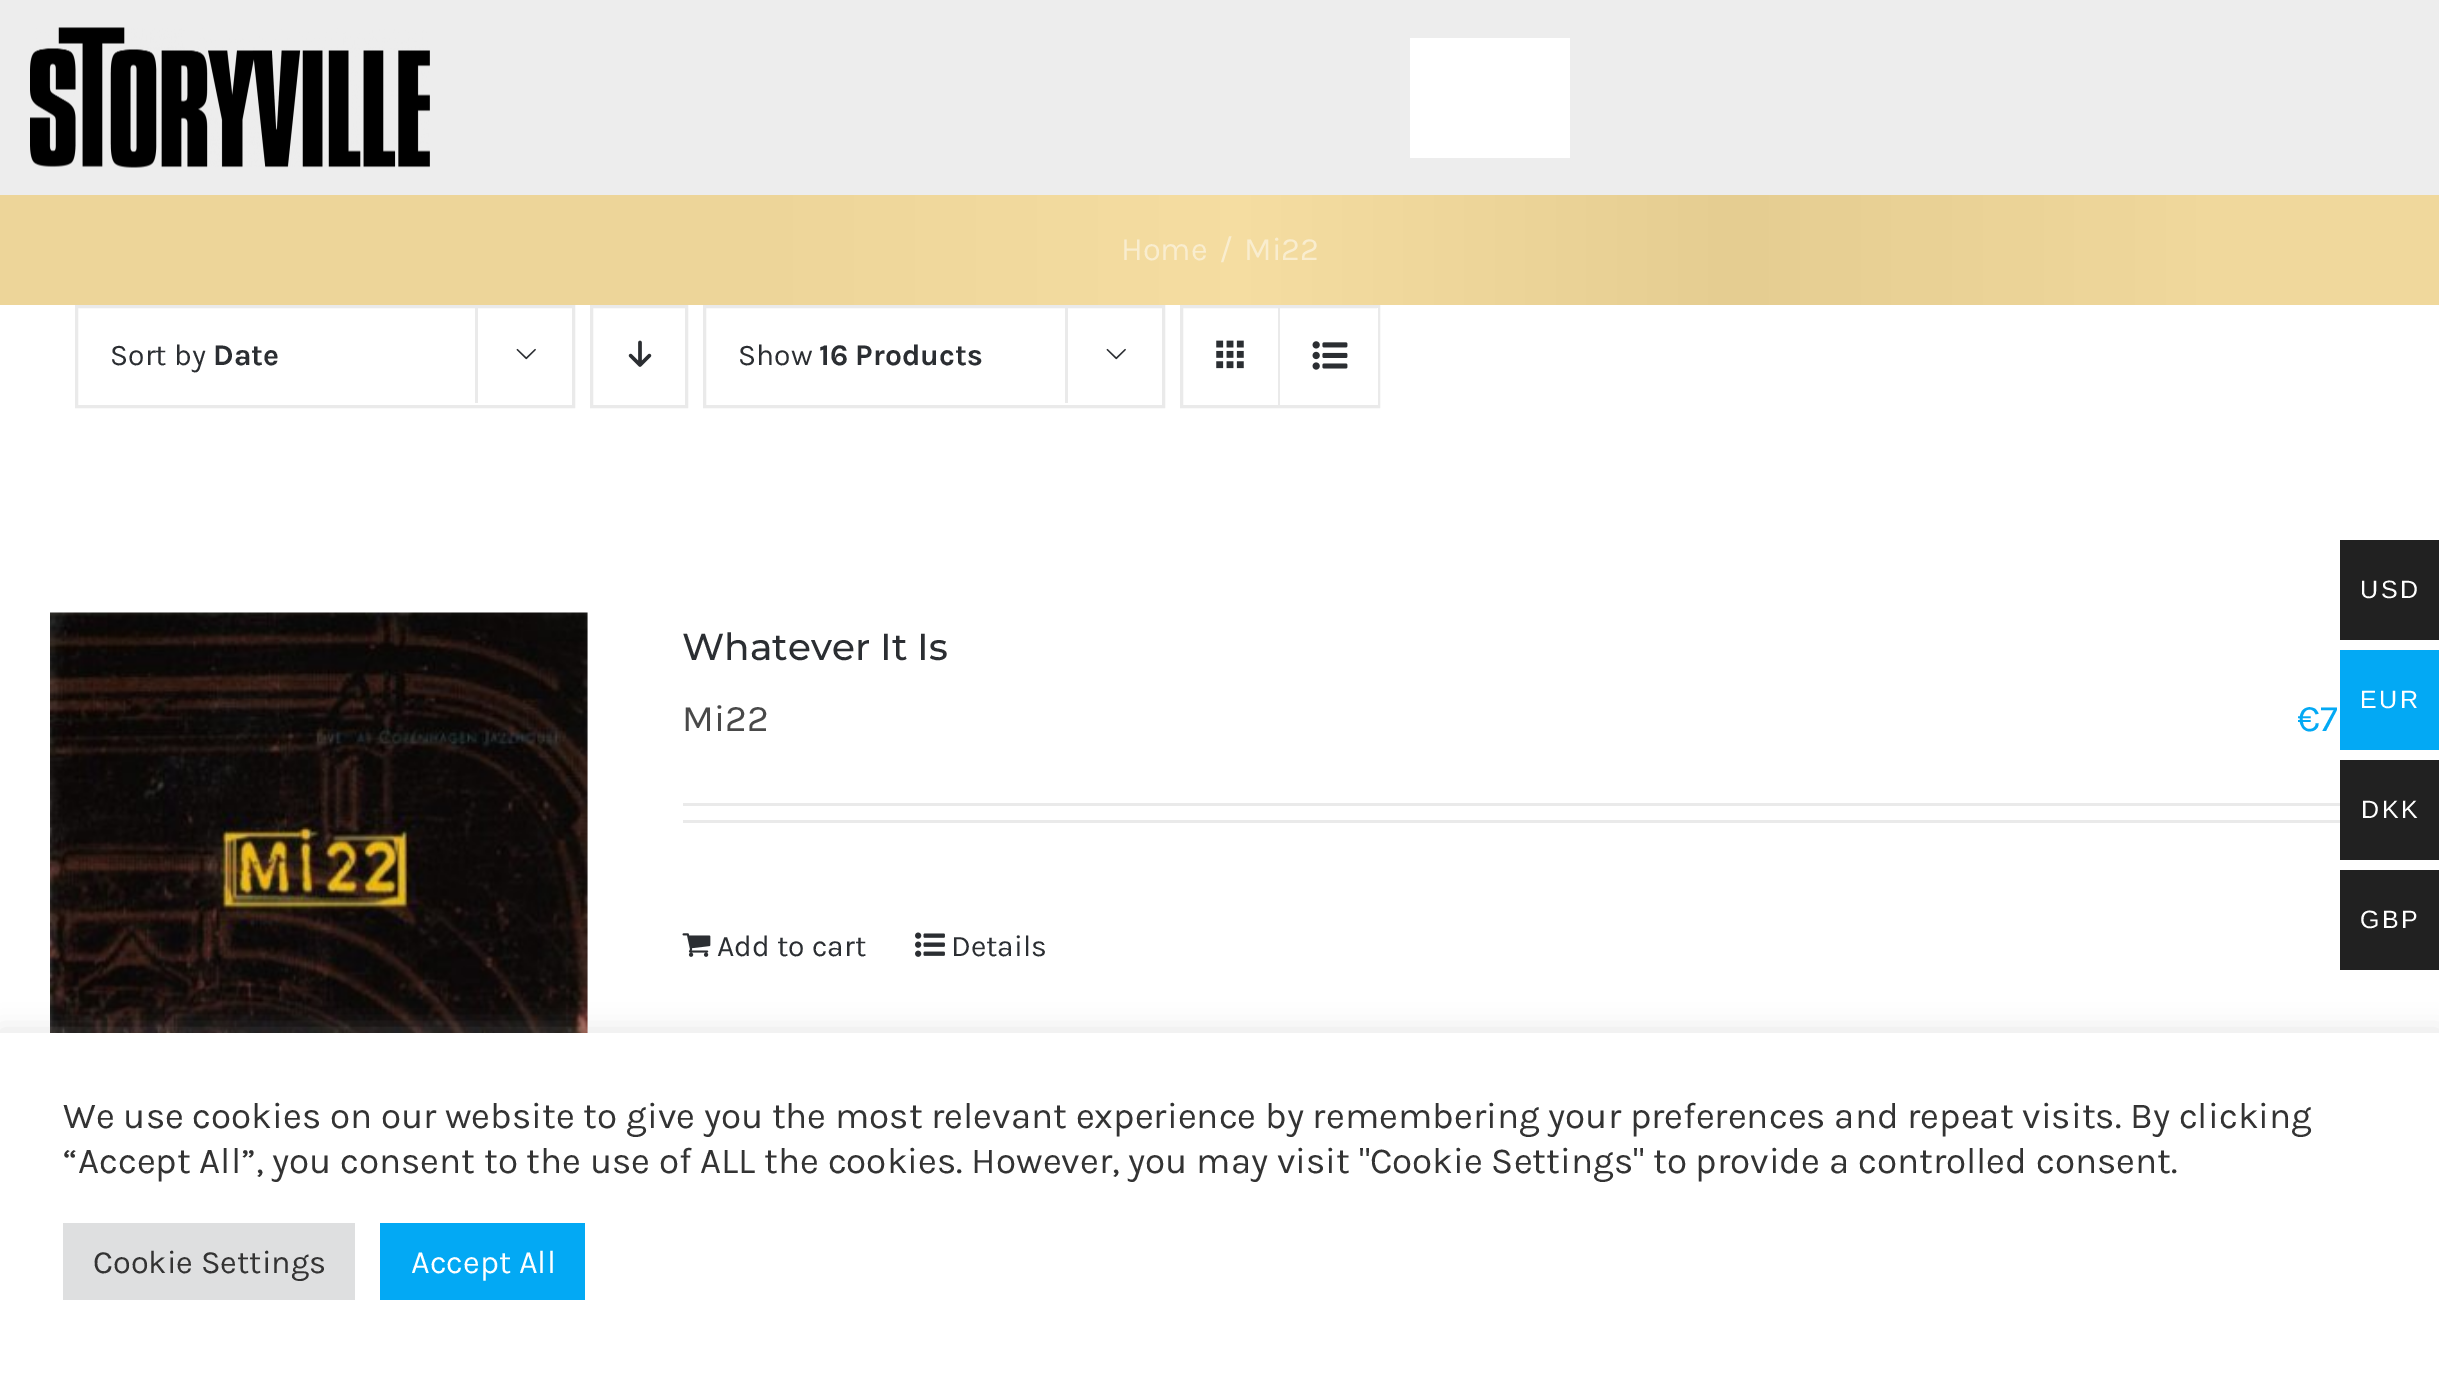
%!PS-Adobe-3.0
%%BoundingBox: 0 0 2439 1373
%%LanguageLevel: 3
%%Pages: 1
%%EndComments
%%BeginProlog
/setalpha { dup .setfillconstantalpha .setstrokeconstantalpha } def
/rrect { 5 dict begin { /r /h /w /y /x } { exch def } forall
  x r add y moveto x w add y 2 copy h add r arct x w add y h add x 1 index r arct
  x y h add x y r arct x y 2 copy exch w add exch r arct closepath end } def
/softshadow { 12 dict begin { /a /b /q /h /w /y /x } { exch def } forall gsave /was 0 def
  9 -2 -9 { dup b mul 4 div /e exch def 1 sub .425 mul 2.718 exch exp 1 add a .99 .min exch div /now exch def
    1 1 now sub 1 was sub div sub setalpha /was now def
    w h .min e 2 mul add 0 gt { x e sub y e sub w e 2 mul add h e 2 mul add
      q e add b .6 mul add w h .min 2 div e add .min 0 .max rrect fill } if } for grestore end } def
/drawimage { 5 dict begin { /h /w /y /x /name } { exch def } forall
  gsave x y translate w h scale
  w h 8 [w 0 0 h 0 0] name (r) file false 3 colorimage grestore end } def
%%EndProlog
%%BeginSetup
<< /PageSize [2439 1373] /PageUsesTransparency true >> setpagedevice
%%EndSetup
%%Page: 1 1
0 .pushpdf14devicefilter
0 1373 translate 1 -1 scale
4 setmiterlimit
1 setgray
0 0 2439 1373 rectfill
0.929 setgray
0 0 2439 195 rectfill
(images/1.raw) 30 27 400 141 drawimage
1 setgray
1410 38 160 120 rectfill
(images/2.raw) 0 195 2439 110 drawimage
0.918 setgray
3 setlinewidth
76.5 306.5 497 100 rectstroke
475 305 3 98 rectfill
(images/3.raw) 516 348 20 12 drawimage
591.5 306.5 95 100 rectstroke
(images/4.raw) 628 340 24 27 drawimage
704.5 306.5 459 100 rectstroke
1065 305 3 98 rectfill
(images/3.raw) 1106 348 20 12 drawimage
1181.5 306.5 197 100 rectstroke
1278 308 2 97 rectfill
(images/5.raw) 1216 340 28 29 drawimage
1 setgray
1377 308 1 97 rectfill
(images/6.raw) 1312 341 36 29 drawimage
(images/7.raw) 50 612 538 421 drawimage
0.918 setgray
683 803 1657 3 rectfill
683 820 1657 3 rectfill
(images/8.raw) 682 933 29 24 drawimage
(images/9.raw) 915 932 30 25 drawimage
0.129 setgray
2340 540 99 100 rectfill
0.012 0.663 0.957 setrgbcolor
2340 650 99 100 rectfill
0.129 setgray
2340 760 99 100 rectfill
2340 870 99 100 rectfill
0.675 0.671 0.671 setrgbcolor
0 1030 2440 343 0 12.5 0.3 softshadow
1 setgray
0 1033 2439 340 rectfill
0.871 0.875 0.878 setrgbcolor
63 1223 292 77 rectfill
0.012 0.663 0.957 setrgbcolor
380 1223 205 77 rectfill
/Karla-Regular [32.5 0 0 -32.5 0 0] selectfont
0.976 0.929 0.812 setrgbcolor
1121 260 moveto (Home) show
1219 260 moveto (/) show
1244 260 moveto (Mi22) show
/Karla-Regular [30 0 0 -30 0 0] selectfont
0.169 0.18 0.196 setrgbcolor
110 365 moveto (Sort by) show
/Karla-Bold [30 0 0 -30 0 0] selectfont
213 365 moveto (Date) show
/Karla-Regular [30 0 0 -30 0 0] selectfont
738 365 moveto (Show) show
/Karla-Bold [30 0 0 -30 0 0] selectfont
819 365 moveto (16 Products) show
/Montserrat-Medium [37.5 0 0 -37.5 0 0] selectfont
682 660 moveto (Whatever It Is) show
/Karla-Regular [37.5 0 0 -37.5 0 0] selectfont
0.286 setgray
682 731 moveto (Mi22) show
0.012 0.663 0.957 setrgbcolor
2297 731 moveto (€7) show
/Karla-Regular [30 0 0 -30 0 0] selectfont
0.169 0.18 0.196 setrgbcolor
717 956 moveto (Add to cart) show
951 956 moveto (Details) show
/LiberationSans-Regular [25 0 0 -25 0 0] selectfont
1 setgray
2360 598 moveto 2.5 0 (USD) ashow
2360 708 moveto 2.5 0 (EUR) ashow
2361 818 moveto 2.5 0 (DKK) ashow
2360 928 moveto 2.5 0 (GBP) ashow
/Karla-Regular [36.67 0 0 -36.67 0 0] selectfont
0.2 setgray
63 1128 moveto (We use cookies on our website to give you the most relevant experience by remembering your preferences and repeat visits. By clicking) show
63 1173 moveto (“Accept All”, you consent to the use of ALL the cookies. However, you may visit "Cookie Settings" to provide a controlled consent.) show
/Karla-Regular [32.5 0 0 -32.5 0 0] selectfont
93 1273 moveto (Cookie Settings) show
1 setgray
411 1273 moveto (Accept All) show
.poppdf14devicefilter showpage
%%EOF
